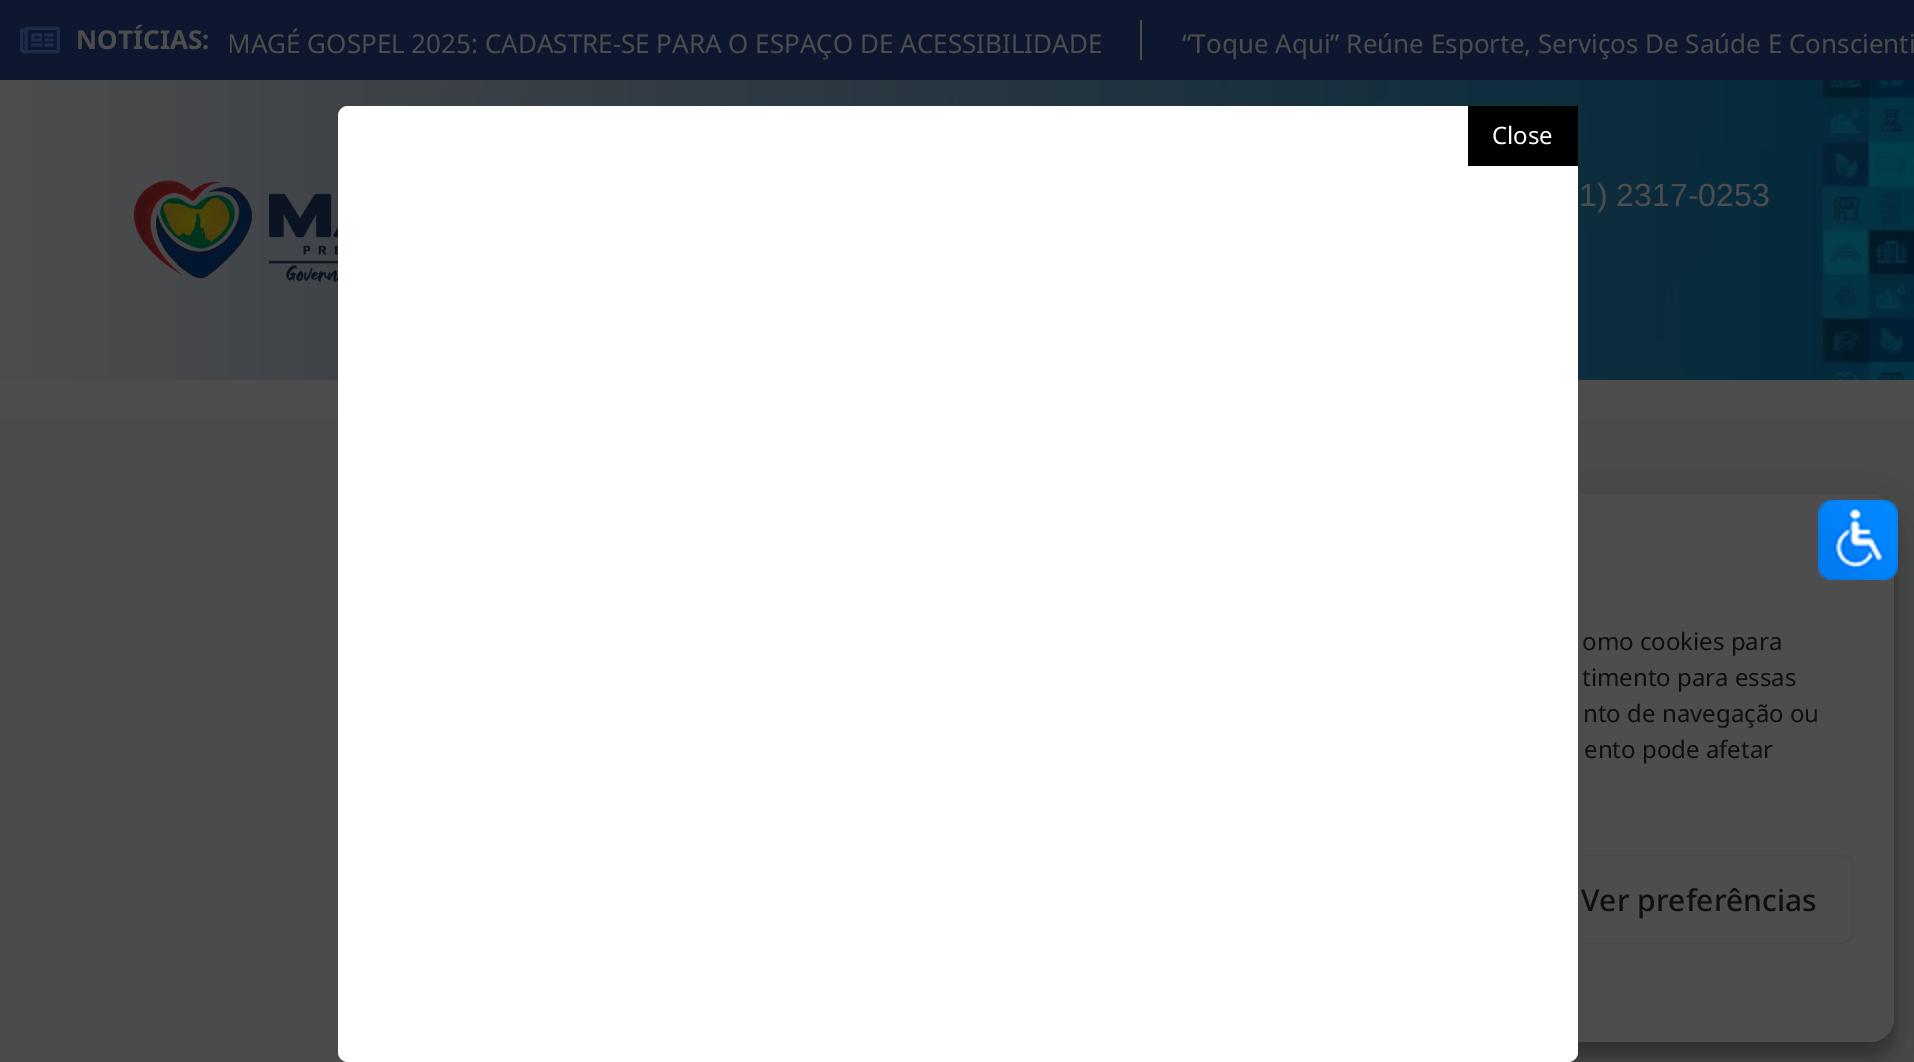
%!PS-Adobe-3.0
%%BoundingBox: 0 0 1914 1062
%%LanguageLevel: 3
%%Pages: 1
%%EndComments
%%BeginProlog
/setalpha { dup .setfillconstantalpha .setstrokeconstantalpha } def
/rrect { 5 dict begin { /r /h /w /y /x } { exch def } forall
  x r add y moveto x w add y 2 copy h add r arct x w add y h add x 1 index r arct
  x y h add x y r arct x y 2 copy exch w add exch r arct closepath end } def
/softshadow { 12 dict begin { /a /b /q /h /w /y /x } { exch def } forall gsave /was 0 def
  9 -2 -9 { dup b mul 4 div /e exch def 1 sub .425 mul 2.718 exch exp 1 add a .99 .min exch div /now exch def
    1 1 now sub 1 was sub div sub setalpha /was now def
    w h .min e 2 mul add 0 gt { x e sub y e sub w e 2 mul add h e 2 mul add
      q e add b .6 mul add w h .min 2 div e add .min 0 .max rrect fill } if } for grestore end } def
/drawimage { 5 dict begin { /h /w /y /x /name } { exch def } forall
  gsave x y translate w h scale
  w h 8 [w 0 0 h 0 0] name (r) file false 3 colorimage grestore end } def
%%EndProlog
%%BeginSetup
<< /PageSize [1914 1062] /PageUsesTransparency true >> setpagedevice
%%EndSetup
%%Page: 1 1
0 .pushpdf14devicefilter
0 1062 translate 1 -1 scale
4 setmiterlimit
0.302 setgray
0 0 1914 1062 rectfill
0.055 0.09 0.184 setrgbcolor
0 0 1914 80 rectfill
(images/1.raw) 20 26 40 28 drawimage
0.302 setgray
1140 20 2 40 rectfill
(images/2.raw) 0 80 1914 300 drawimage
(images/3.raw) 134 180 204 102 drawimage
0.286 0.29 0.29 setrgbcolor
0 420 1914 642 rectfill
0 setgray
842 506 1052 548 24 6 0.23 softshadow
842 514 1052 548 24 20 0.19 softshadow
0.302 setgray
842 494 1052 548 24 rrect fill
0.286 setgray
2 setlinewidth
1545 855 308 88 11 rrect stroke
1 setgray
338 106 1240 956 10 rrect fill
0 setgray
1468 106 110 60 rectfill
(images/5.raw) 1820 544 1 24 drawimage
(images/4.raw) 1818 500 80 80 drawimage
/NotoSans-Bold [26 0 0 -26 0 0] selectfont
0.302 setgray
76 49 moveto (NOTÍCIAS:) show
gsave
230 0 1684 80 rectclip
/NotoSans-Regular [26 0 0 -26 0 0] selectfont
227 53 moveto (MAGÉ GOSPEL 2025: CADASTRE-SE PARA O ESPAÇO DE ACESSIBILIDADE) show
grestore
/NotoSans-Regular [26 0 0 -26 0 0] selectfont
1182 53 moveto (“Toque Aqui” Reúne Esporte, Serviços De Saúde E Conscienti) show
/LiberationSans-Regular [32 0 0 -32 0 0] selectfont
1579 206 moveto (1\) 2317-0253) show
/NotoSans-Regular [24 0 0 -24 0 0] selectfont
1 setgray
1492 144 moveto (Close) show
0.059 setgray
1582 650 moveto (omo cookies para) show
1582 686 moveto (timento para essas) show
1583 722 moveto (nto de navegação ou) show
1584 758 moveto (ento pode afetar) show
/NotoSans-Medium [30 0 0 -30 0 0] selectfont
1581 911 moveto (Ver preferências) show
.poppdf14devicefilter showpage
%%EOF
